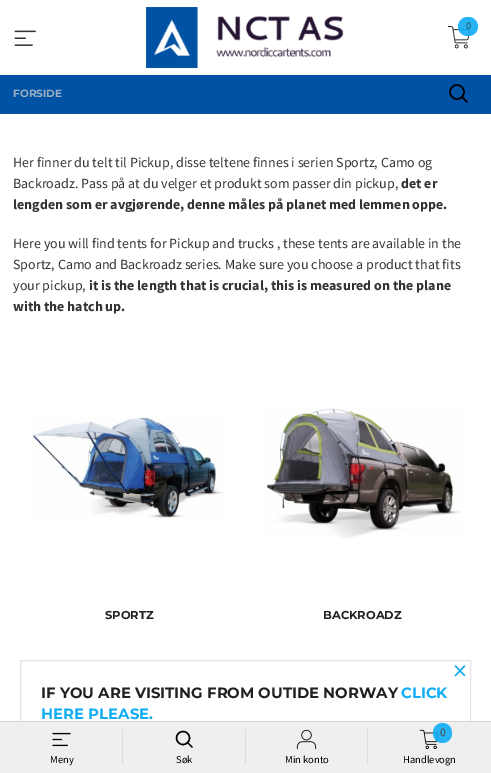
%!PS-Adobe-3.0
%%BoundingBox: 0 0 491 773
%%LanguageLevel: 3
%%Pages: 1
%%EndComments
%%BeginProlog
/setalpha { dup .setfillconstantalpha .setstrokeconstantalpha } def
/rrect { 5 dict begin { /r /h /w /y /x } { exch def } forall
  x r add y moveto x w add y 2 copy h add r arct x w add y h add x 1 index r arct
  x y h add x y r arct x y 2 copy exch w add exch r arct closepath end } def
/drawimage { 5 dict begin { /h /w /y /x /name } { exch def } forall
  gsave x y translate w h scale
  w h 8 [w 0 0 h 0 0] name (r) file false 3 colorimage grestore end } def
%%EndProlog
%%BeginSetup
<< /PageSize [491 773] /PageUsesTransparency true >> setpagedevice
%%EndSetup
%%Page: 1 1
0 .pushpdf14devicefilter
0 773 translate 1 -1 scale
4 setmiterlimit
0 0.322 0.643 setrgbcolor
0 0 491 773 rectfill
1 setgray
0 0 491 75 rectfill
(images/1.raw) 14 30 22 16 drawimage
(images/2.raw) 146 7 198 61 drawimage
(images/3.raw) 448 26 22 23 drawimage
0.9 setalpha
0.059 0.675 0.953 setrgbcolor
458 17 20 19 9.5 rrect fill
1 setalpha
0 setgray
1.5 setlinewidth
newpath 457 92 7 0 360 arc closepath stroke
1 setlinecap
newpath 467 102 moveto 462 97 lineto stroke
1 setgray
0 114 491 607 rectfill
(images/4.raw) 32 417 192 101 drawimage
(images/5.raw) 267 408 195 131 drawimage
0.894 setgray
1 setlinewidth
0 setlinecap
20.5 660.5 450 92 rectstroke
0.937 setgray
0 722 491 51 rectfill
0.835 setgray
0 721 491 1 rectfill
(images/6.raw) 52 732 19 15 drawimage
0.859 setgray
122 729 1 36 rectfill
0 setgray
1.4 setlinewidth
newpath 183 738 6.5 0 360 arc closepath stroke
1 setlinecap
newpath 192 747 moveto 187.5 742.5 lineto stroke
0.859 setgray
245 729 1 36 rectfill
(images/7.raw) 296 729 21 21 drawimage
367 729 1 36 rectfill
(images/8.raw) 419 729 20 21 drawimage
0.9 setalpha
0.059 0.675 0.953 setrgbcolor
433 723 19 20 9.5 rrect fill
/SourceSansPro-Regular [10.5 0 0 -10.5 0 0] selectfont
1 setalpha
0.212 0.267 0.294 setrgbcolor
466 29 moveto (0) show
/Montserrat-Bold [10.5 0 0 -10.5 0 0] selectfont
0.6 0.682 0.761 setrgbcolor
13 97 moveto (FORSIDE) show
/SourceSansPro-Regular [14 0 0 -14 0 0] selectfont
0.2 setgray
13 167 moveto (Her finner du telt til Pickup, disse teltene finnes i serien Sportz, Camo og) show
13 188 moveto (Backroadz. Pass på at du velger et produkt som passer din pickup,) show
/SourceSansPro-Bold [14 0 0 -14 0 0] selectfont
401 188 moveto (det er) show
13 209 moveto (lengden som er avgjørende, denne måles på planet med lemmen oppe.) show
/SourceSansPro-Regular [14 0 0 -14 0 0] selectfont
13 248 moveto (Here you will find tents for Pickup and trucks , these tents are available in the) show
13 269 moveto (Sportz, Camo and Backroadz series. Make sure you choose a product that fits) show
13 290 moveto (your pickup,) show
/SourceSansPro-Bold [14 0 0 -14 0 0] selectfont
89 290 moveto (it is the length that is crucial, this is measured on the plane) show
13 311 moveto (with the hatch up.) show
/Montserrat-Bold [11.5 0 0 -11.5 0 0] selectfont
0.129 setgray
105 619 moveto (SPORTZ) show
323 619 moveto (BACKROADZ) show
/SourceSansPro-Regular [28 0 0 -28 0 0] selectfont
0.059 0.675 0.953 setrgbcolor
453 680 moveto (×) show
/Montserrat-Bold [14.9 0 0 -14.9 0 0] selectfont
0.129 setgray
41 698 moveto (IF YOU ARE VISITING FROM OUTIDE NORWAY) show
0.059 0.675 0.953 setrgbcolor
401 698 moveto (CLICK) show
41 719 moveto (HERE PLEASE.) show
/SourceSansPro-Regular [10.5 0 0 -10.5 0 0] selectfont
0 setgray
50 763 moveto (Meny) show
176 763 moveto (Søk) show
285 763 moveto (Min konto) show
/SourceSansPro-Regular [11.5 0 0 -11.5 0 0] selectfont
0.29 setgray
440 736 moveto (0) show
/SourceSansPro-Regular [10.5 0 0 -10.5 0 0] selectfont
0 setgray
403 763 moveto (Handlevogn) show
.poppdf14devicefilter showpage
%%EOF
